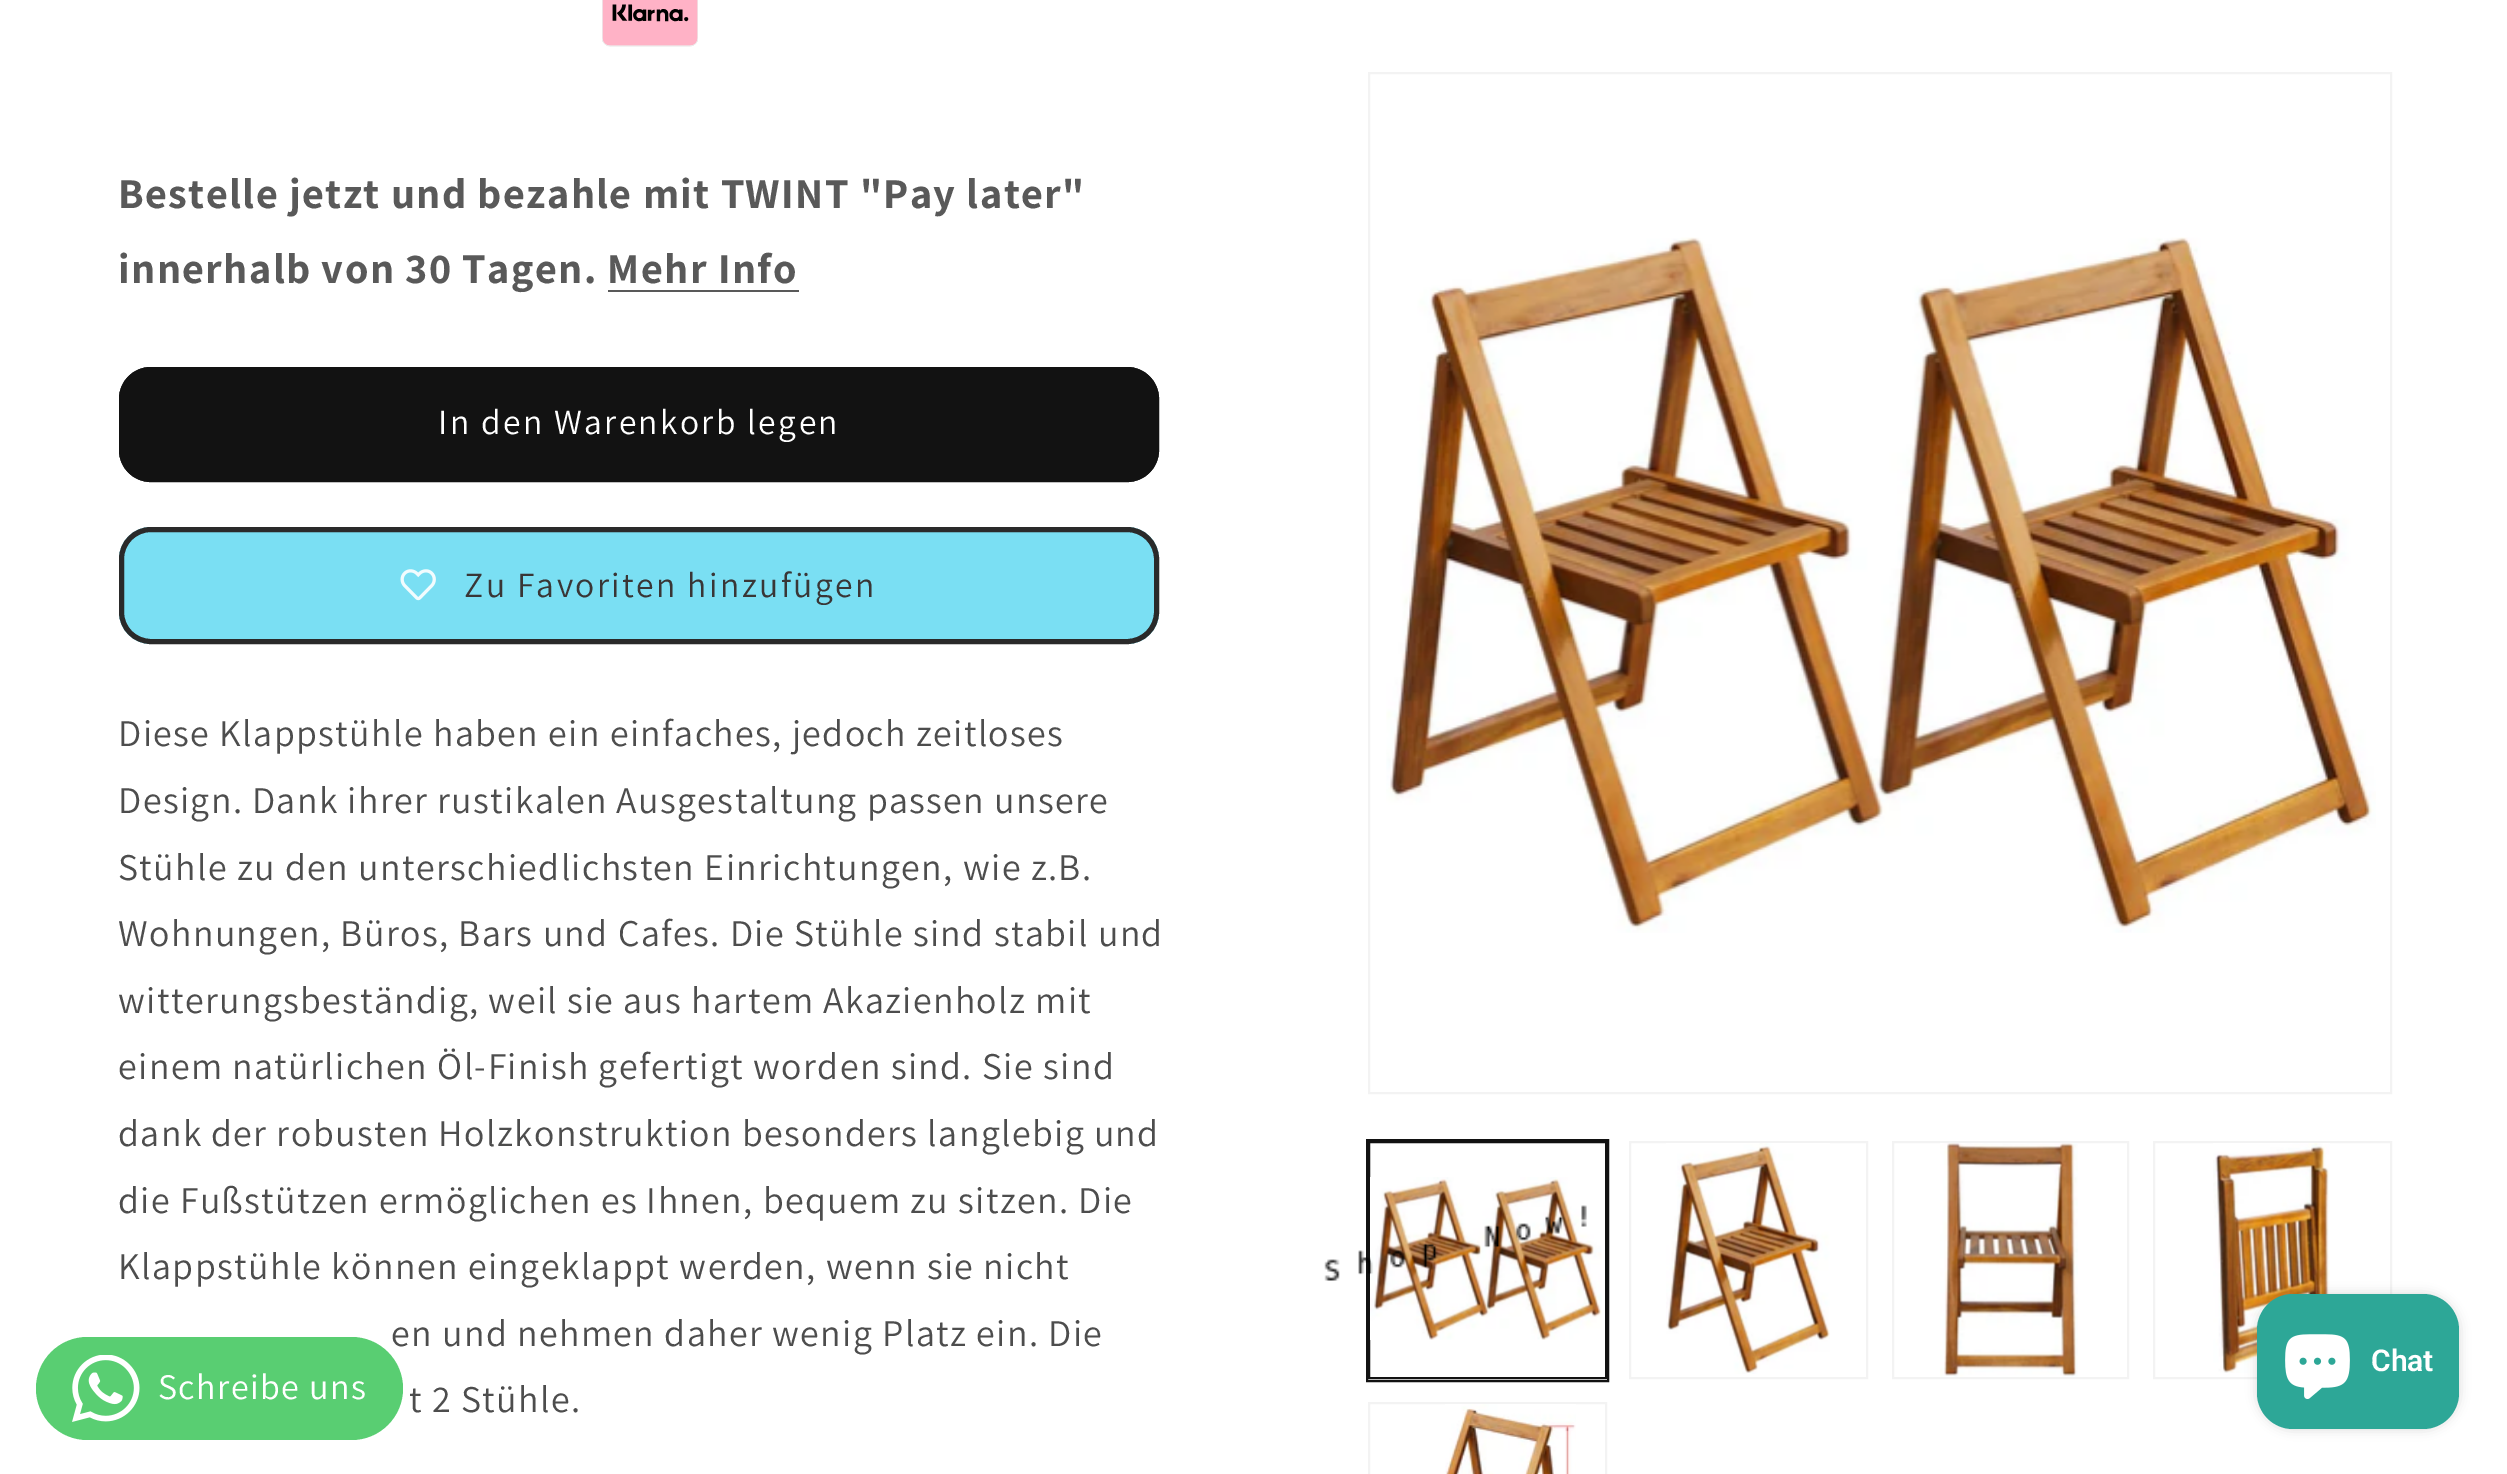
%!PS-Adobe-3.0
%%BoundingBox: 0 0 2507 1474
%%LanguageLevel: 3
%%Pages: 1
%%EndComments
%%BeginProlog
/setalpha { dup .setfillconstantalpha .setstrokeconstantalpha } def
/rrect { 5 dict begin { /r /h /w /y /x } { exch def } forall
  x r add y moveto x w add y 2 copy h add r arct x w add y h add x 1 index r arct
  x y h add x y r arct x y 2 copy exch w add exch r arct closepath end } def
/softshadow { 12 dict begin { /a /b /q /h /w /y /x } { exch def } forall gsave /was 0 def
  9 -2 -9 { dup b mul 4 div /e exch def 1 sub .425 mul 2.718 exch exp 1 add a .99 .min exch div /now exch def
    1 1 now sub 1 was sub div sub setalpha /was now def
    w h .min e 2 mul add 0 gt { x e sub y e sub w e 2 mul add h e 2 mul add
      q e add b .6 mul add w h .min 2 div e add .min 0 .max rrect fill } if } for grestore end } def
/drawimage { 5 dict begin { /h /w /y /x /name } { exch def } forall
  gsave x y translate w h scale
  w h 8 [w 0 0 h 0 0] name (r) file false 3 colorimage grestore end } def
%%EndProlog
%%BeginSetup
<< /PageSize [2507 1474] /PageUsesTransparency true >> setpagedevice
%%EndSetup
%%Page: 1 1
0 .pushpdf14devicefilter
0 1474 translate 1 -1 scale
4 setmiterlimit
1 setgray
0 0 2507 1474 rectfill
(images/1.raw) 602 0 96 47 drawimage
0.349 setgray
608 290 191 2 rectfill
0.071 setgray
119 367 1040 115 32 rrect fill
5 setlinewidth
121.5 369.5 1035 110 29.5 rrect stroke
0.478 0.875 0.953 setrgbcolor
119 527 1040 117 32 rrect fill
(images/2.raw) 400 569 36 32 drawimage
0.165 setgray
121.5 529.5 1035 112 29.5 rrect stroke
0.953 setgray
2 setlinewidth
1369 73 1022 1020 rectstroke
(images/3.raw) 1386 237 990 696 drawimage
0.071 setgray
1367 1140 241 241 rectstroke
1369 1142 237 236 rectstroke
(images/4.raw) 1370 1177 232 163 drawimage
0.953 setgray
1630 1142 237 236 rectstroke
(images/5.raw) 1666 1143 164 231 drawimage
1893 1142 235 236 rectstroke
(images/6.raw) 1940 1143 138 234 drawimage
2154 1142 237 236 rectstroke
(images/7.raw) 2213 1143 117 230 drawimage
1369 1403 237 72 rectstroke
(images/8.raw) 1445 1404 131 70 drawimage
(images/9.raw) 1324 1205 263 76 drawimage
0 setgray
2257 1294 202 135 36 5.5 0.15 softshadow
0.176 0.655 0.592 setrgbcolor
2257 1294 202 135 36 rrect fill
(images/10.raw) 2285 1334 65 65 drawimage
/Assistant-Bold [42.5 0 0 -42.5 0 0] selectfont
0.349 setgray
118 208 moveto 1.42 0 (Bestelle jetzt und bezahle mit TWINT "Pay later") ashow
118 283 moveto 1.42 0 (innerhalb von 30 Tagen. Mehr Info) ashow
/Assistant-Regular [35.5 0 0 -35.5 0 0] selectfont
1 setgray
438 434 moveto 2.4 0 (In den Warenkorb legen) ashow
0.224 0.212 0.212 setrgbcolor
464 597 moveto 2.4 0 (Zu Favoriten hinzufügen) ashow
/Assistant-Regular [37.8 0 0 -37.8 0 0] selectfont
0.302 setgray
118 746 moveto 1.42 0 (Diese Klappstühle haben ein einfaches, jedoch zeitloses) ashow
118 813 moveto -0.25 0 32 1.42 0 (Design. Dank ihrer rustikalen Ausgestaltung passen unsere) awidthshow
118 880 moveto 1.42 0 (Stühle zu den unterschiedlichsten Einrichtungen, wie z.B.) ashow
118 946 moveto 1.42 0 (Wohnungen, Büros, Bars und Cafes. Die Stühle sind stabil und) ashow
118 1013 moveto -0.25 0 32 1.42 0 (witterungsbeständig, weil sie aus hartem Akazienholz mit) awidthshow
118 1079 moveto 1.42 0 (einem natürlichen Öl-Finish gefertigt worden sind. Sie sind) ashow
118 1146 moveto -0.25 0 32 1.42 0 (dank der robusten Holzkonstruktion besonders langlebig und) awidthshow
118 1213 moveto -0.25 0 32 1.42 0 (die Fußstützen ermöglichen es Ihnen, bequem zu sitzen. Die) awidthshow
118 1279 moveto 1.42 0 (Klappstühle können eingeklappt werden, wenn sie nicht) ashow
391 1346 moveto 1.42 0 (en und nehmen daher wenig Platz ein. Die) ashow
409 1412 moveto 1.42 0 (t 2 Stühle.) ashow
/Roboto-SemiBold [30 0 0 -30 0 0] selectfont
1 setgray
2371 1371 moveto (Chat) show
0.349 0.808 0.447 setrgbcolor
36 1337 367 103 51.5 rrect fill
(images/11.raw) 72 1355 68 67 drawimage
/Assistant-Regular [36 0 0 -36 0 0] selectfont
1 setgray
158 1399 moveto 1.42 0 (Schreibe uns) ashow
.poppdf14devicefilter showpage
%%EOF
